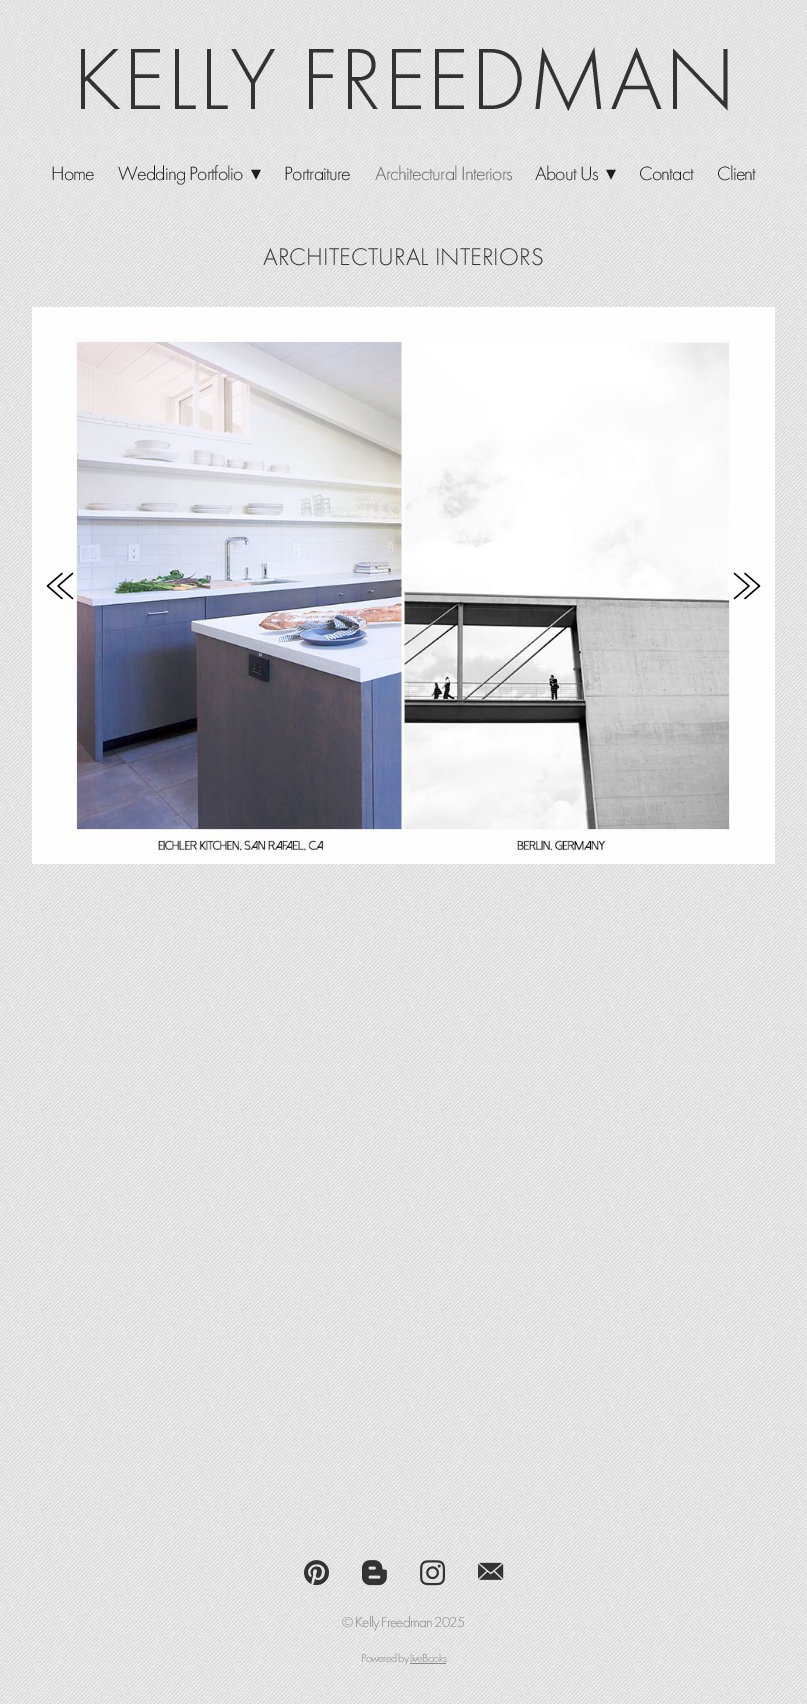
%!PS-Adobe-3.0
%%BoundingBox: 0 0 807 1704
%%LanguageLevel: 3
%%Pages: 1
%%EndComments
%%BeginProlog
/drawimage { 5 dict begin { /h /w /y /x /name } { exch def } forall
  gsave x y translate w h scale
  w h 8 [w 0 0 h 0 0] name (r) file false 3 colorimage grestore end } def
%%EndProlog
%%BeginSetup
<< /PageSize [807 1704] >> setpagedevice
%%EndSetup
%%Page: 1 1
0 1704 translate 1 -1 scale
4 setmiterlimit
1 setgray
0 0 807 1704 rectfill
(images/1.raw) 0 208 807 1496 drawimage
(images/2.raw) 0 0 807 131 drawimage
(images/3.raw) 0 131 807 77 drawimage
(images/4.raw) 32 307 742 557 drawimage
0.996 setgray
774 307 1 557 rectfill
0 setgray
1.3 setlinewidth
1 setlinecap
1 setlinejoin
newpath 62 573.5 moveto 47.5 586 lineto 62 598.5 lineto 72.5 573.5 moveto 58 586 lineto 72.5 598.5 lineto stroke
newpath 745 573.5 moveto 759.5 586 lineto 745 598.5 lineto 734.5 573.5 moveto 749 586 lineto 734.5 598.5 lineto stroke
(images/5.raw) 304 1560 25 26 drawimage
(images/6.raw) 362 1560 25 26 drawimage
(images/7.raw) 420 1560 26 26 drawimage
(images/8.raw) 478 1562 26 18 drawimage
0.529 setgray
410 1663 36 1 rectfill
/FuturaPT-Light [90 0 0 -90 0 0] selectfont
0.2 setgray
73 109 moveto 1.75 0 (KELLY FREEDMAN) ashow
/FuturaPT-Light [20 0 0 -20 0 0] selectfont
0.114 setgray
51 180 moveto -0.8 0 (Home) ashow
118 180 moveto -0.8 0 (Wedding Portfolio) ashow
/DejaVuSans-Regular [20 0 0 -20 0 0] selectfont
251 180 moveto -0.8 0 (▾) ashow
/FuturaPT-Light [20 0 0 -20 0 0] selectfont
284 180 moveto -0.8 0 (Portraiture) ashow
0.4 setgray
375 180 moveto -0.8 0 (Architectural Interiors) ashow
0.114 setgray
535 180 moveto -0.8 0 (About Us) ashow
/DejaVuSans-Regular [20 0 0 -20 0 0] selectfont
606 180 moveto -0.8 0 (▾) ashow
/FuturaPT-Light [20 0 0 -20 0 0] selectfont
639 180 moveto -0.8 0 (Contact) ashow
717 180 moveto -0.8 0 (Client) ashow
/FuturaPT-Light [25 0 0 -25 0 0] selectfont
0.2 setgray
263 265 moveto (ARCHITECTURAL INTERIORS) show
/FuturaPT-Light [15 0 0 -15 0 0] selectfont
0.529 setgray
342 1627 moveto -0.75 0 (© Kelly Freedman 2025) ashow
/FuturaPT-Light [12 0 0 -12 0 0] selectfont
361 1662 moveto -0.75 0 (Powered by liveBooks) ashow
showpage
%%EOF
